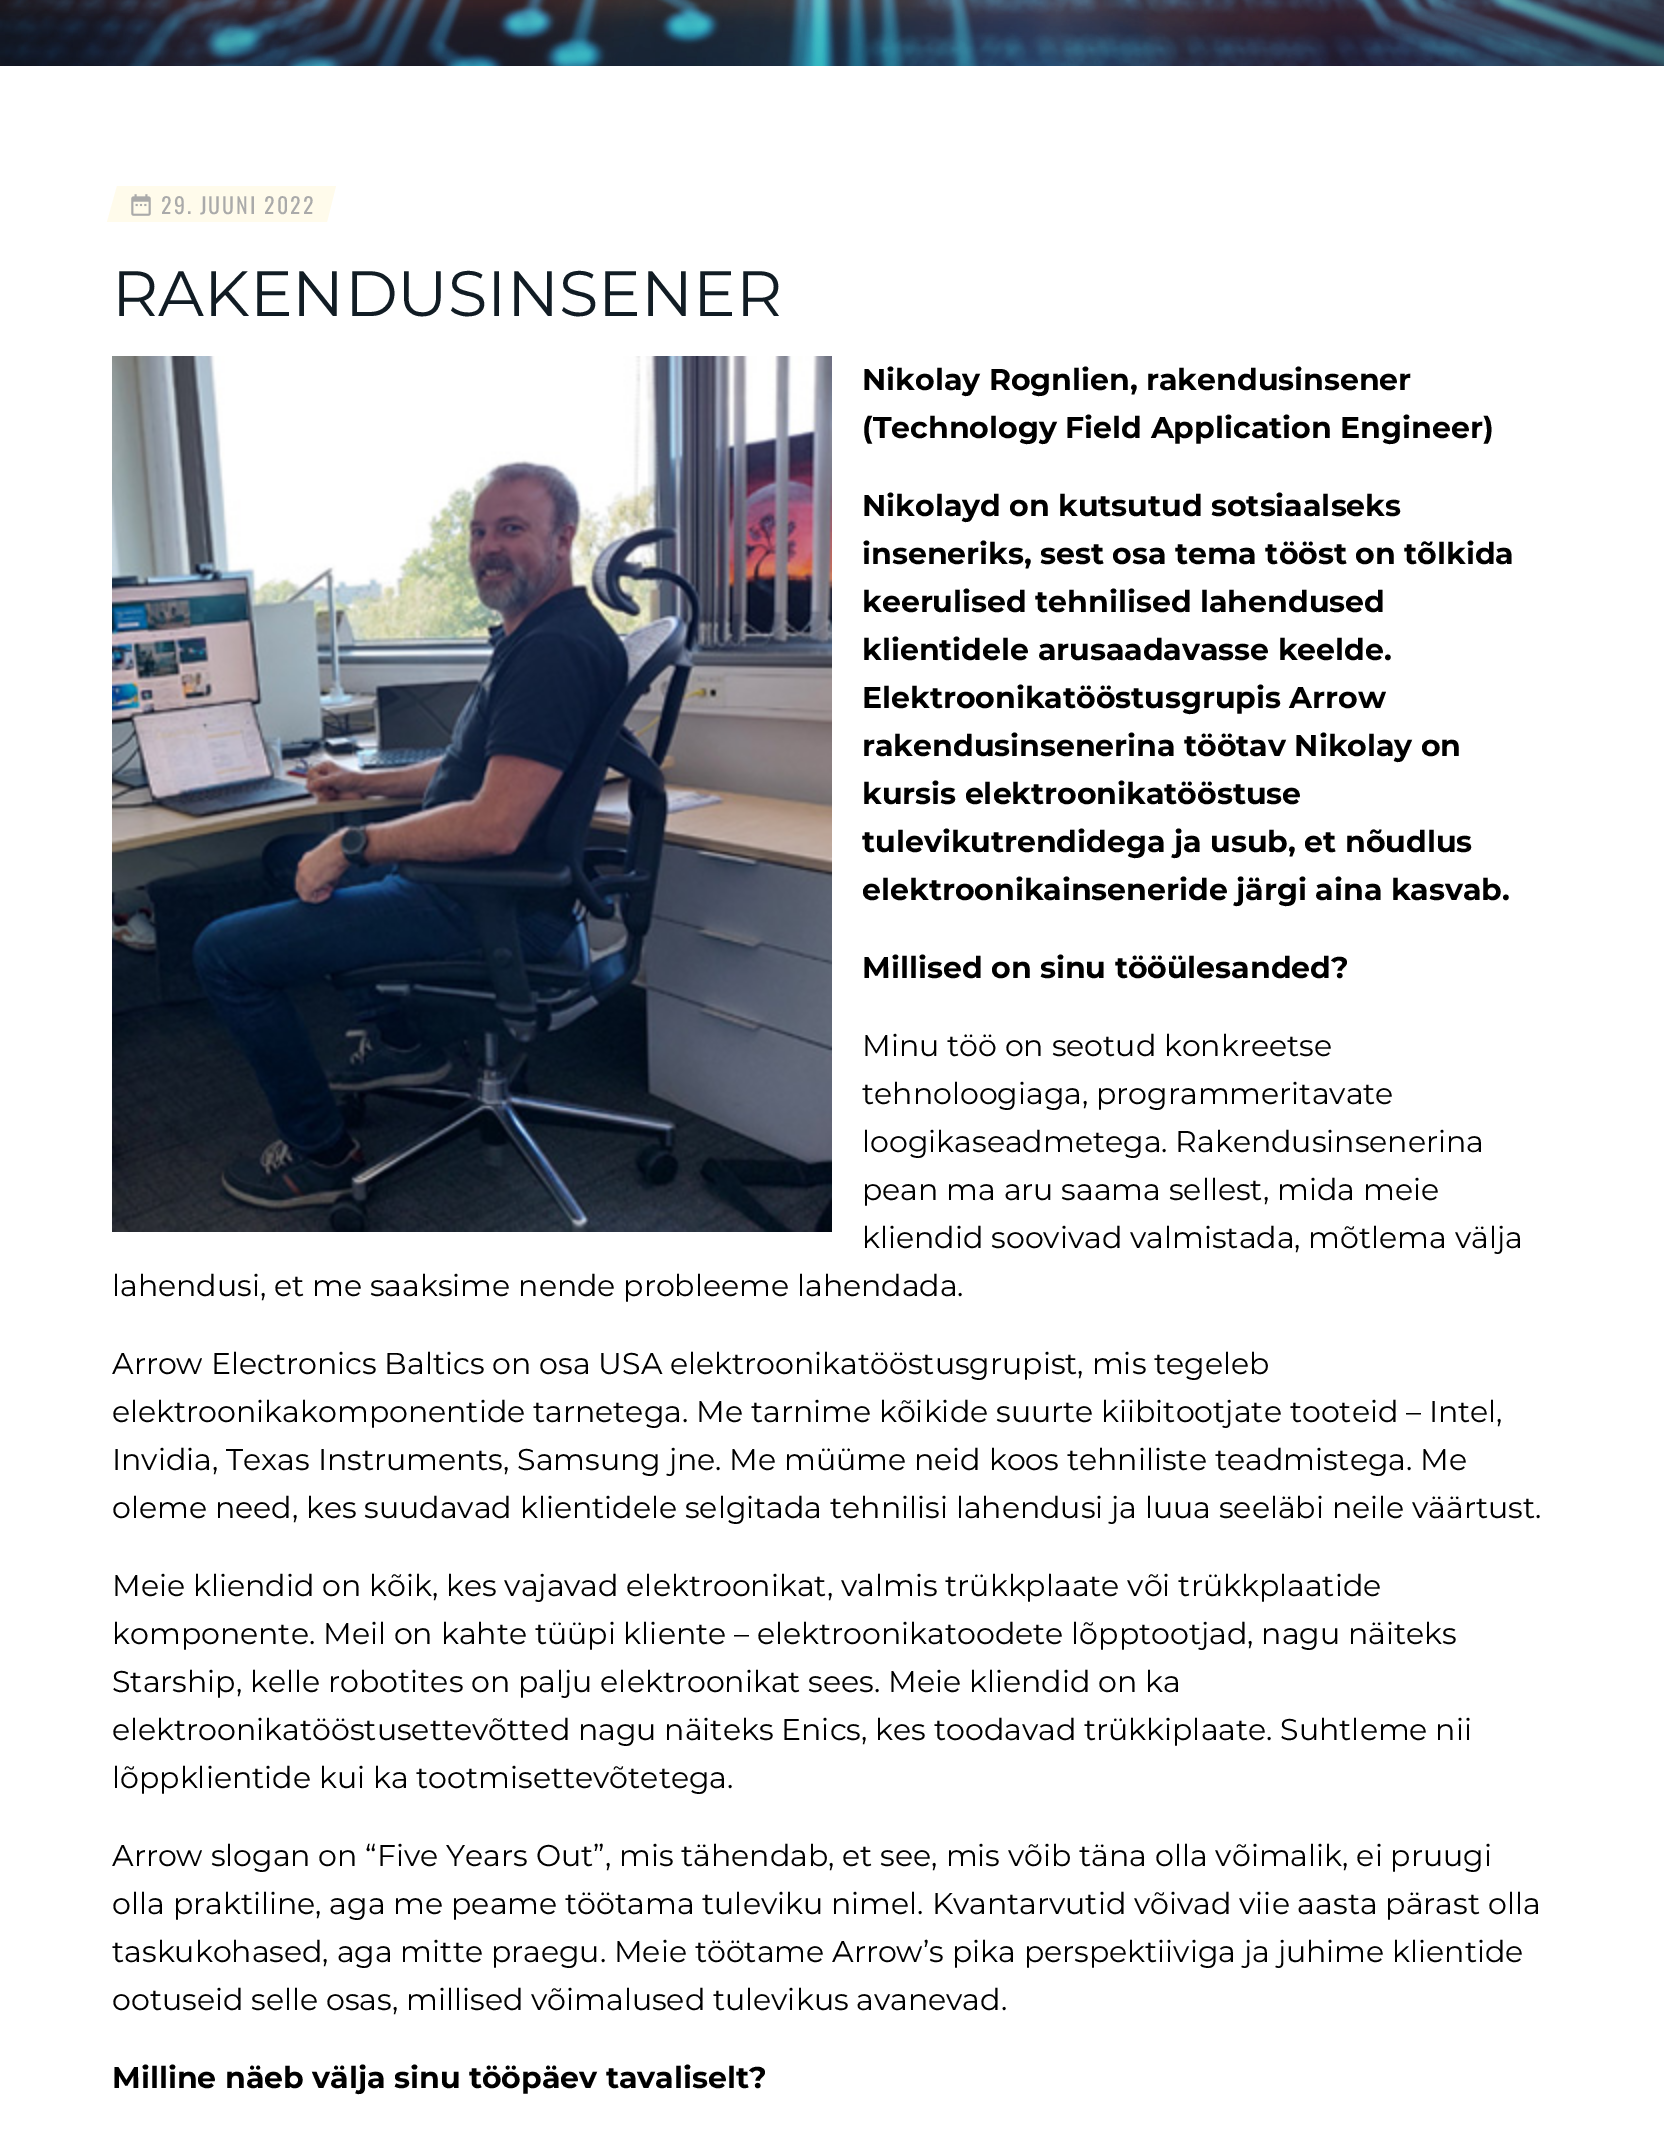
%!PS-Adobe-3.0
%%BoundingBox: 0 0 1664 2131
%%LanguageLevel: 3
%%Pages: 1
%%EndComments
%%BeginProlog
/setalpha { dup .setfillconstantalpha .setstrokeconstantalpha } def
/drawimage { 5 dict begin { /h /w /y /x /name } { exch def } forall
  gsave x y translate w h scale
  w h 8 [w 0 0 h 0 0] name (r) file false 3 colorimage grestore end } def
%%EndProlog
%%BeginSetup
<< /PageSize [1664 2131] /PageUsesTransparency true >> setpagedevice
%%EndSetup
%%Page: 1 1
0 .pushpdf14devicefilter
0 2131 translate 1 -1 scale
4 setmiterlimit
1 setgray
0 0 1664 2131 rectfill
(images/1.raw) 0 0 1664 66 drawimage
0.08 setalpha
0.988 0.812 0.016 setrgbcolor
newpath 117 186 moveto 336 186 lineto 327 222 lineto 107 222 lineto closepath fill
1 setalpha
(images/2.raw) 131 194 20 22 drawimage
(images/3.raw) 112 356 720 876 drawimage
/Oswald-Regular [22 0 0 -22 0 0] selectfont
0.667 setgray
161 214 moveto 2 0 (29. JUUNI 2022) ashow
/Montserrat-Regular [64 0 0 -64 0 0] selectfont
0.067 0.11 0.141 setrgbcolor
112 316 moveto (RAKENDUSINSENER) show
/Montserrat-Bold [30 0 0 -30 0 0] selectfont
0 setgray
862 390 moveto (Nikolay Rognlien, rakendusinsener) show
862 438 moveto (\(Technology Field Application Engineer\)) show
862 516 moveto (Nikolayd on kutsutud sotsiaalseks) show
862 564 moveto (inseneriks, sest osa tema tööst on tõlkida) show
862 612 moveto (keerulised tehnilised lahendused) show
862 660 moveto (klientidele arusaadavasse keelde.) show
862 708 moveto (Elektroonikatööstusgrupis Arrow) show
862 756 moveto (rakendusinsenerina töötav Nikolay on) show
862 804 moveto (kursis elektroonikatööstuse) show
862 852 moveto (tulevikutrendidega ja usub, et nõudlus) show
862 900 moveto (elektroonikainseneride järgi aina kasvab.) show
862 978 moveto (Millised on sinu tööülesanded?) show
/Montserrat-Regular [30 0 0 -30 0 0] selectfont
862 1056 moveto (Minu töö on seotud konkreetse) show
862 1104 moveto (tehnoloogiaga, programmeritavate) show
862 1152 moveto (loogikaseadmetega. Rakendusinsenerina) show
862 1200 moveto (pean ma aru saama sellest, mida meie) show
862 1248 moveto (kliendid soovivad valmistada, mõtlema välja) show
112 1296 moveto (lahendusi, et me saaksime nende probleeme lahendada.) show
112 1374 moveto (Arrow Electronics Baltics on osa USA elektroonikatööstusgrupist, mis tegeleb) show
112 1422 moveto (elektroonikakomponentide tarnetega. Me tarnime kõikide suurte kiibitootjate tooteid – Intel,) show
112 1470 moveto (Invidia, Texas Instruments, Samsung jne. Me müüme neid koos tehniliste teadmistega. Me) show
112 1518 moveto (oleme need, kes suudavad klientidele selgitada tehnilisi lahendusi ja luua seeläbi neile väärtust.) show
112 1596 moveto (Meie kliendid on kõik, kes vajavad elektroonikat, valmis trükkplaate või trükkplaatide) show
112 1644 moveto (komponente. Meil on kahte tüüpi kliente – elektroonikatoodete lõpptootjad, nagu näiteks) show
112 1692 moveto (Starship, kelle robotites on palju elektroonikat sees. Meie kliendid on ka) show
112 1740 moveto (elektroonikatööstusettevõtted nagu näiteks Enics, kes toodavad trükkiplaate. Suhtleme nii) show
112 1788 moveto (lõppklientide kui ka tootmisettevõtetega.) show
112 1866 moveto (Arrow slogan on “Five Years Out”, mis tähendab, et see, mis võib täna olla võimalik, ei pruugi) show
112 1914 moveto (olla praktiline, aga me peame töötama tuleviku nimel. Kvantarvutid võivad viie aasta pärast olla) show
112 1962 moveto (taskukohased, aga mitte praegu. Meie töötame Arrow’s pika perspektiiviga ja juhime klientide) show
112 2010 moveto (ootuseid selle osas, millised võimalused tulevikus avanevad.) show
/Montserrat-Bold [30 0 0 -30 0 0] selectfont
112 2088 moveto (Milline näeb välja sinu tööpäev tavaliselt?) show
.poppdf14devicefilter showpage
%%EOF
